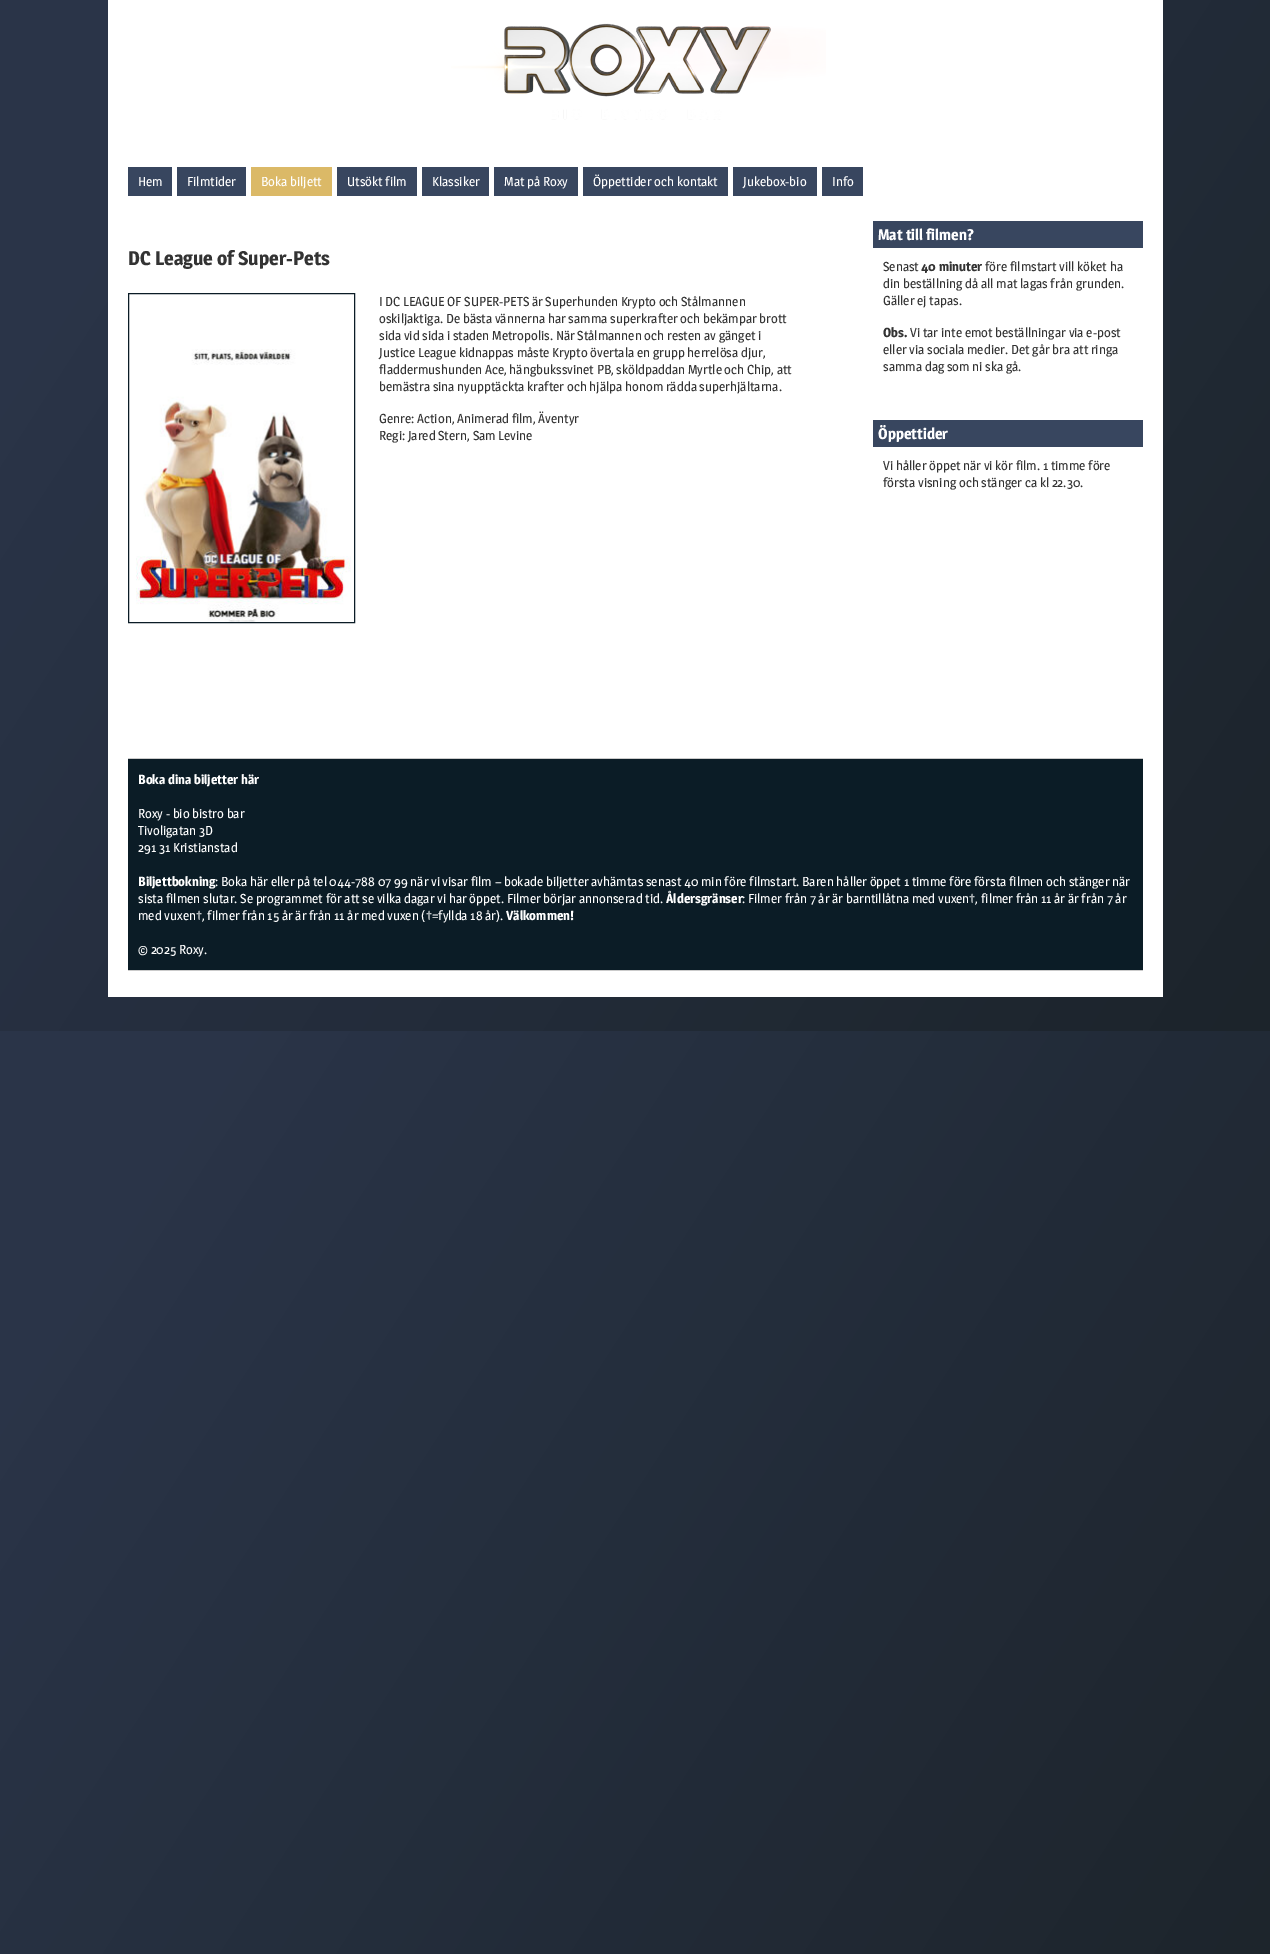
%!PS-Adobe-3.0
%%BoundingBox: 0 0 1270 1954
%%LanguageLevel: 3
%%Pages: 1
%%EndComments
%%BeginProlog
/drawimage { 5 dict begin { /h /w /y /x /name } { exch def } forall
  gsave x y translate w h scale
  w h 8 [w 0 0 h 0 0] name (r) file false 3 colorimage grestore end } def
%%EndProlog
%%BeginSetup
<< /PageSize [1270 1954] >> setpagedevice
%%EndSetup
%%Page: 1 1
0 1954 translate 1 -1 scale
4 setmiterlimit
1 setgray
0 0 1270 1954 rectfill
gsave newpath 0 0 moveto 1270 0 lineto 1270 1031 lineto 0 1031 lineto closepath clip newpath
<< /ShadingType 2 /ColorSpace /DeviceRGB /Coords [-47 73 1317 958] /Extend [true true] /Function << /FunctionType 3 /Domain [0 1] /Functions [<< /FunctionType 2 /Domain [0 1] /C0 [0.165 0.204 0.282] /C1 [0.165 0.204 0.282] /N 1 >> << /FunctionType 2 /Domain [0 1] /C0 [0.165 0.204 0.282] /C1 [0.11 0.141 0.169] /N 1 >>] /Bounds [0.13] /Encode [0 1 0 1] >> >> shfill grestore
gsave newpath 0 1031 moveto 1270 1031 lineto 1270 1954 lineto 0 1954 lineto closepath clip newpath
<< /ShadingType 2 /ColorSpace /DeviceRGB /Coords [-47 1104 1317 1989] /Extend [true true] /Function << /FunctionType 3 /Domain [0 1] /Functions [<< /FunctionType 2 /Domain [0 1] /C0 [0.165 0.204 0.282] /C1 [0.165 0.204 0.282] /N 1 >> << /FunctionType 2 /Domain [0 1] /C0 [0.165 0.204 0.282] /C1 [0.11 0.141 0.169] /N 1 >>] /Bounds [0.13] /Encode [0 1 0 1] >> >> shfill grestore
108 0 1055 997 rectfill
(images/1.raw) 451 23 375 97 drawimage
0.22 0.275 0.373 setrgbcolor
128 167 44 29 rectfill
177 167 69 29 rectfill
0.859 0.725 0.404 setrgbcolor
251 167 81 29 rectfill
0.22 0.275 0.373 setrgbcolor
337 167 80 29 rectfill
422 167 67 29 rectfill
494 167 84 29 rectfill
583 167 145 29 rectfill
733 167 84 29 rectfill
822 167 41 29 rectfill
(images/2.raw) 136 349 215 273 drawimage
0.043 0.11 0.149 setrgbcolor
128.5 293.5 226 329 rectstroke
0.22 0.275 0.373 setrgbcolor
873 221 270 27 rectfill
873 420 270 27 rectfill
0.043 0.11 0.149 setrgbcolor
128 759 1015 211 rectfill
0.796 setgray
128 758 1015 1 rectfill
128 970 1015 1 rectfill
/Magra-Regular [13 0 0 -13 0 0] selectfont
1 setgray
138 186 moveto (Hem) show
187 186 moveto (Filmtider) show
261 186 moveto (Boka biljett) show
347 186 moveto (Utsökt film) show
432 186 moveto (Klassiker) show
504 186 moveto (Mat på Roxy) show
593 186 moveto (Öppettider och kontakt) show
743 186 moveto (Jukebox-bio) show
832 186 moveto (Info) show
/Magra-Bold [19.5 0 0 -19.5 0 0] selectfont
0.2 setgray
128 265 moveto (DC League of Super-Pets) show
/Magra-Regular [13 0 0 -13 0 0] selectfont
379 306 moveto (I DC LEAGUE OF SUPER-PETS är Superhunden Krypto och Stålmannen) show
379 323 moveto (oskiljaktiga. De bästa vännerna har samma superkrafter och bekämpar brott) show
379 340 moveto (sida vid sida i staden Metropolis. När Stålmannen och resten av gänget i) show
379 357 moveto (Justice League kidnappas måste Krypto övertala en grupp herrelösa djur,) show
379 374 moveto (fladdermushunden Ace, hängbukssvinet PB, sköldpaddan Myrtle och Chip, att) show
379 391 moveto (bemästra sina nyupptäckta krafter och hjälpa honom rädda superhjältarna.) show
379 423 moveto (Genre: Action, Animerad film, Äventyr) show
379 440 moveto (Regi: Jared Stern, Sam Levine) show
/Magra-Bold [15.25 0 0 -15.25 0 0] selectfont
1 setgray
878 240 moveto (Mat till filmen?) show
/Magra-Regular [13 0 0 -13 0 0] selectfont
0.2 setgray
883 271 moveto (Senast) show
/Magra-Bold [13 0 0 -13 0 0] selectfont
921 271 moveto (40 minuter) show
/Magra-Regular [13 0 0 -13 0 0] selectfont
985 271 moveto (före filmstart vill köket ha) show
883 288 moveto (din beställning då all mat lagas från grunden.) show
883 305 moveto (Gäller ej tapas.) show
/Magra-Bold [13 0 0 -13 0 0] selectfont
883 337 moveto (Obs.) show
/Magra-Regular [13 0 0 -13 0 0] selectfont
910 337 moveto (Vi tar inte emot beställningar via e-post) show
883 354 moveto (eller via sociala medier. Det går bra att ringa) show
883 371 moveto (samma dag som ni ska gå.) show
/Magra-Bold [15.25 0 0 -15.25 0 0] selectfont
1 setgray
878 439 moveto (Öppettider) show
/Magra-Regular [13 0 0 -13 0 0] selectfont
0.2 setgray
883 470 moveto (Vi håller öppet när vi kör film. 1 timme före) show
883 487 moveto (första visning och stänger ca kl 22.30.) show
/Magra-Bold [13 0 0 -13 0 0] selectfont
1 setgray
138 784 moveto (Boka dina biljetter här) show
/Magra-Regular [13 0 0 -13 0 0] selectfont
138 818 moveto (Roxy - bio bistro bar) show
138 835 moveto (Tivoligatan 3D) show
138 852 moveto (291 31 Kristianstad) show
/Magra-Bold [13 0 0 -13 0 0] selectfont
138 886 moveto (Biljettbokning) show
/Magra-Regular [13 0 0 -13 0 0] selectfont
215 886 moveto (: Boka här eller på tel 044-788 07 99 när vi visar film – bokade biljetter avhämtas senast 40 min före filmstart. Baren håller öppet 1 timme före första filmen och stänger när) show
138 903 moveto (sista filmen slutar. Se programmet för att se vilka dagar vi har öppet. Filmer börjar annonserad tid.) show
/Magra-Bold [13 0 0 -13 0 0] selectfont
666 903 moveto (Åldersgränser) show
/Magra-Regular [13 0 0 -13 0 0] selectfont
742 903 moveto (: Filmer från 7 år är barntillåtna med vuxen†, filmer från 11 år är från 7 år) show
138 920 moveto (med vuxen†, filmer från 15 år är från 11 år med vuxen \(†=fyllda 18 år\).) show
/Magra-Bold [13 0 0 -13 0 0] selectfont
506 920 moveto (Välkommen!) show
/Magra-Regular [13 0 0 -13 0 0] selectfont
138 954 moveto (© 2025 Roxy.) show
showpage
%%EOF
